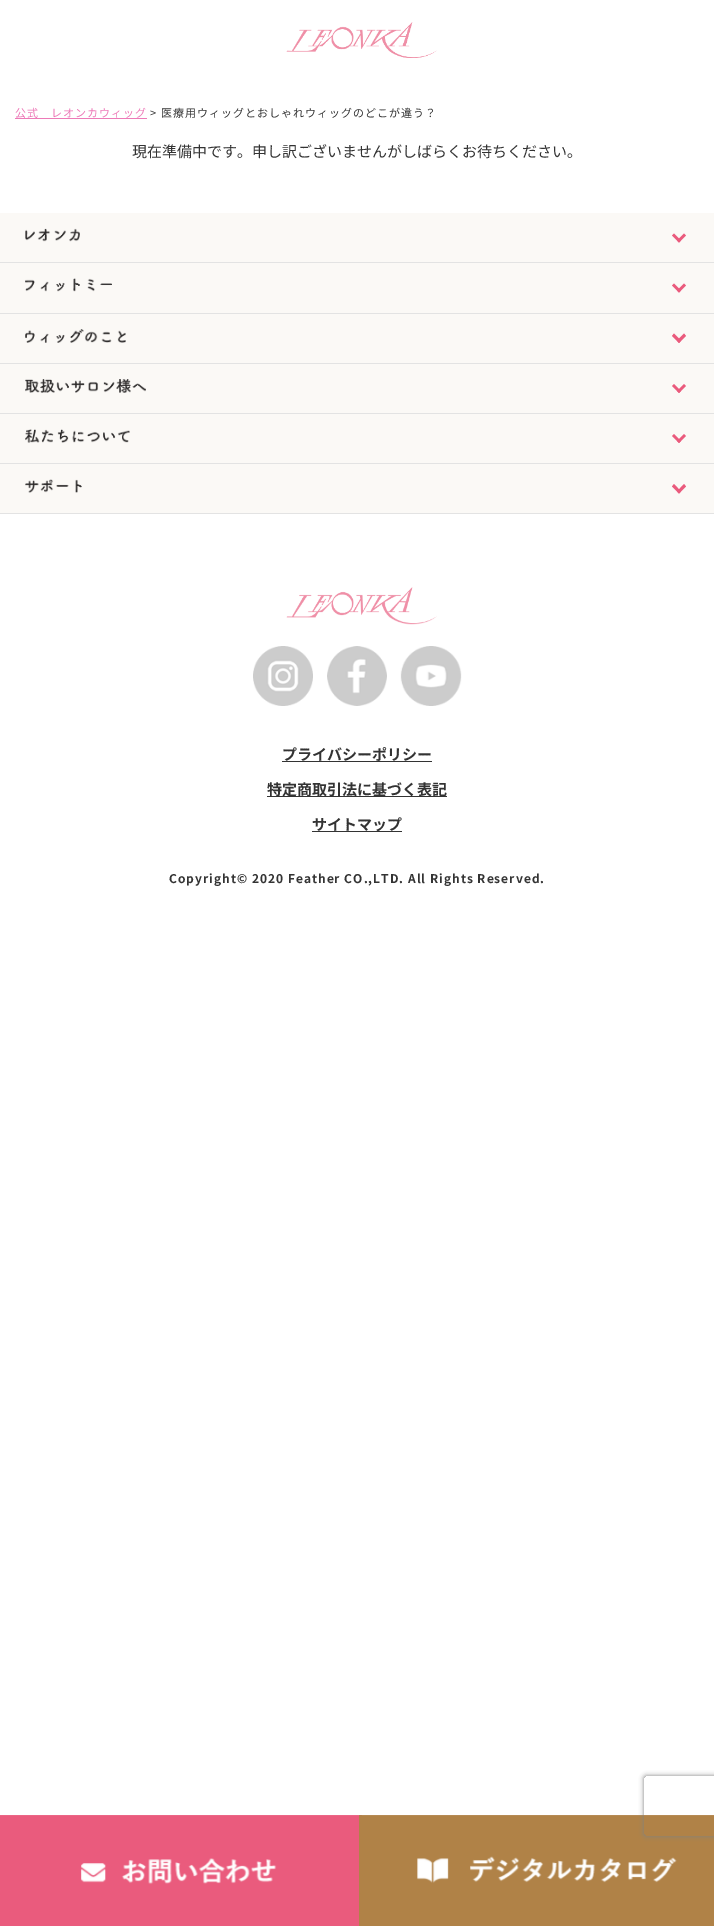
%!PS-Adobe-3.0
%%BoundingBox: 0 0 714 1926
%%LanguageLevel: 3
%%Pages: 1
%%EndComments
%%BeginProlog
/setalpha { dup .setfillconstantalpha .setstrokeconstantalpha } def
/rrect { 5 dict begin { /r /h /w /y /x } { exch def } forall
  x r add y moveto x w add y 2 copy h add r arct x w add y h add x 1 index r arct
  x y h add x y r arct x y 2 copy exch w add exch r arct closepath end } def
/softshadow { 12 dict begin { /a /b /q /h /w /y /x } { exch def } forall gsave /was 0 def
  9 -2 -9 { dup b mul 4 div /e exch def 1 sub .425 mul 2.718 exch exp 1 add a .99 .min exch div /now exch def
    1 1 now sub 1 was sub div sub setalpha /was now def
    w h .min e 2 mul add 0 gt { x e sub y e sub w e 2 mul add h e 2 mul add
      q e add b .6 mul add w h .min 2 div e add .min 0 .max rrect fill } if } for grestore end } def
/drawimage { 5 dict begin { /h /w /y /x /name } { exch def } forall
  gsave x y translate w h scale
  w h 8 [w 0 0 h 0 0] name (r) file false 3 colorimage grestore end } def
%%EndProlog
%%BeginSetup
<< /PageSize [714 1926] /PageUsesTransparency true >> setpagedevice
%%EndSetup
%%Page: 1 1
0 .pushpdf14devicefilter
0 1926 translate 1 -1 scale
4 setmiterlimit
1 setgray
0 0 714 1926 rectfill
(images/1.raw) 286 22 151 36 drawimage
0.929 0.478 0.722 setrgbcolor
15 118 132 1 rectfill
0.984 0.976 0.965 setrgbcolor
0 213 714 300 rectfill
0.89 setgray
0 262 714 1 rectfill
(images/2.raw) 25 228 55 14 drawimage
0.918 0.357 0.49 setrgbcolor
newpath 684 233.5 moveto 686 235.5 lineto 679 242.5 lineto 677 240.5 lineto closepath fill
newpath 674 233.5 moveto 681 240.5 lineto 679 242.5 lineto 672 235.5 lineto closepath fill
0.89 setgray
0 313 714 1 rectfill
(images/3.raw) 25 278 87 14 drawimage
0.918 0.357 0.49 setrgbcolor
newpath 684 283.5 moveto 686 285.5 lineto 679 292.5 lineto 677 290.5 lineto closepath fill
newpath 674 283.5 moveto 681 290.5 lineto 679 292.5 lineto 672 285.5 lineto closepath fill
0.89 setgray
0 363 714 1 rectfill
(images/4.raw) 25 329 101 14 drawimage
0.918 0.357 0.49 setrgbcolor
newpath 684 333.5 moveto 686 336 lineto 679 343 lineto 677 340.5 lineto closepath fill
newpath 674 333.5 moveto 681 340.5 lineto 679 343 lineto 672 336 lineto closepath fill
0.89 setgray
0 413 714 1 rectfill
(images/5.raw) 25 379 121 14 drawimage
0.918 0.357 0.49 setrgbcolor
newpath 684 384 moveto 686 386 lineto 679 393 lineto 677 391 lineto closepath fill
newpath 674 384 moveto 681 391 lineto 679 393 lineto 672 386 lineto closepath fill
0.89 setgray
0 463 714 1 rectfill
(images/6.raw) 25 429 105 14 drawimage
0.918 0.357 0.49 setrgbcolor
newpath 684 434 moveto 686 436 lineto 679 443 lineto 677 441 lineto closepath fill
newpath 674 434 moveto 681 441 lineto 679 443 lineto 672 436 lineto closepath fill
0.89 setgray
0 513 714 1 rectfill
(images/7.raw) 25 479 57 14 drawimage
0.918 0.357 0.49 setrgbcolor
newpath 684 484 moveto 686 486.5 lineto 679 493.5 lineto 677 491.5 lineto closepath fill
newpath 674 484 moveto 681 491.5 lineto 679 493.5 lineto 672 486.5 lineto closepath fill
(images/8.raw) 286 587 151 38 drawimage
(images/9.raw) 253 646 60 60 drawimage
(images/10.raw) 327 646 60 60 drawimage
(images/11.raw) 400 646 62 60 drawimage
0.2 setgray
282 761 150 1 rectfill
267 796 180 1 rectfill
312 831 90 1 rectfill
(images/12.raw) 0 1815 362 111 drawimage
(images/13.raw) 359 1815 355 111 drawimage
gsave
newpath 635 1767 moveto 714 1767 lineto 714 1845 lineto 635 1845 lineto closepath 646 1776 moveto 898 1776 lineto 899 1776 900 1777 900 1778 curveto 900 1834 lineto 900 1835 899 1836 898 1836 curveto 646 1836 lineto 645 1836 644 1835 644 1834 curveto 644 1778 lineto 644 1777 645 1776 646 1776 curveto closepath eoclip newpath
0.502 setgray
644 1776 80 60 2 2.5 1 softshadow
grestore
/NotoSansJP-Regular [11 0 0 -11 0 0] selectfont
0.929 0.478 0.722 setrgbcolor
15 117 moveto 1 0 (公式　レオンカウィッグ) ashow
0.2 setgray
150 117 moveto 1 0 (> 医療用ウィッグとおしゃれウィッグのどこが違う？) ashow
/NotoSansJP-Regular [15 0 0 -15 0 0] selectfont
132 157 moveto (現在準備中です。申し訳ございませんがしばらくお待ちください。) show
/NotoSansJP-Bold [15 0 0 -15 0 0] selectfont
282 760 moveto (プライバシーポリシー) show
267 795 moveto (特定商取引法に基づく表記) show
312 830 moveto (サイトマップ) show
/NotoSansJP-Bold [12 0 0 -12 0 0] selectfont
169 883 moveto 1 0 (Copyright© 2020 Feather CO.,LTD. All Rights Reserved.) ashow
.poppdf14devicefilter showpage
%%EOF
